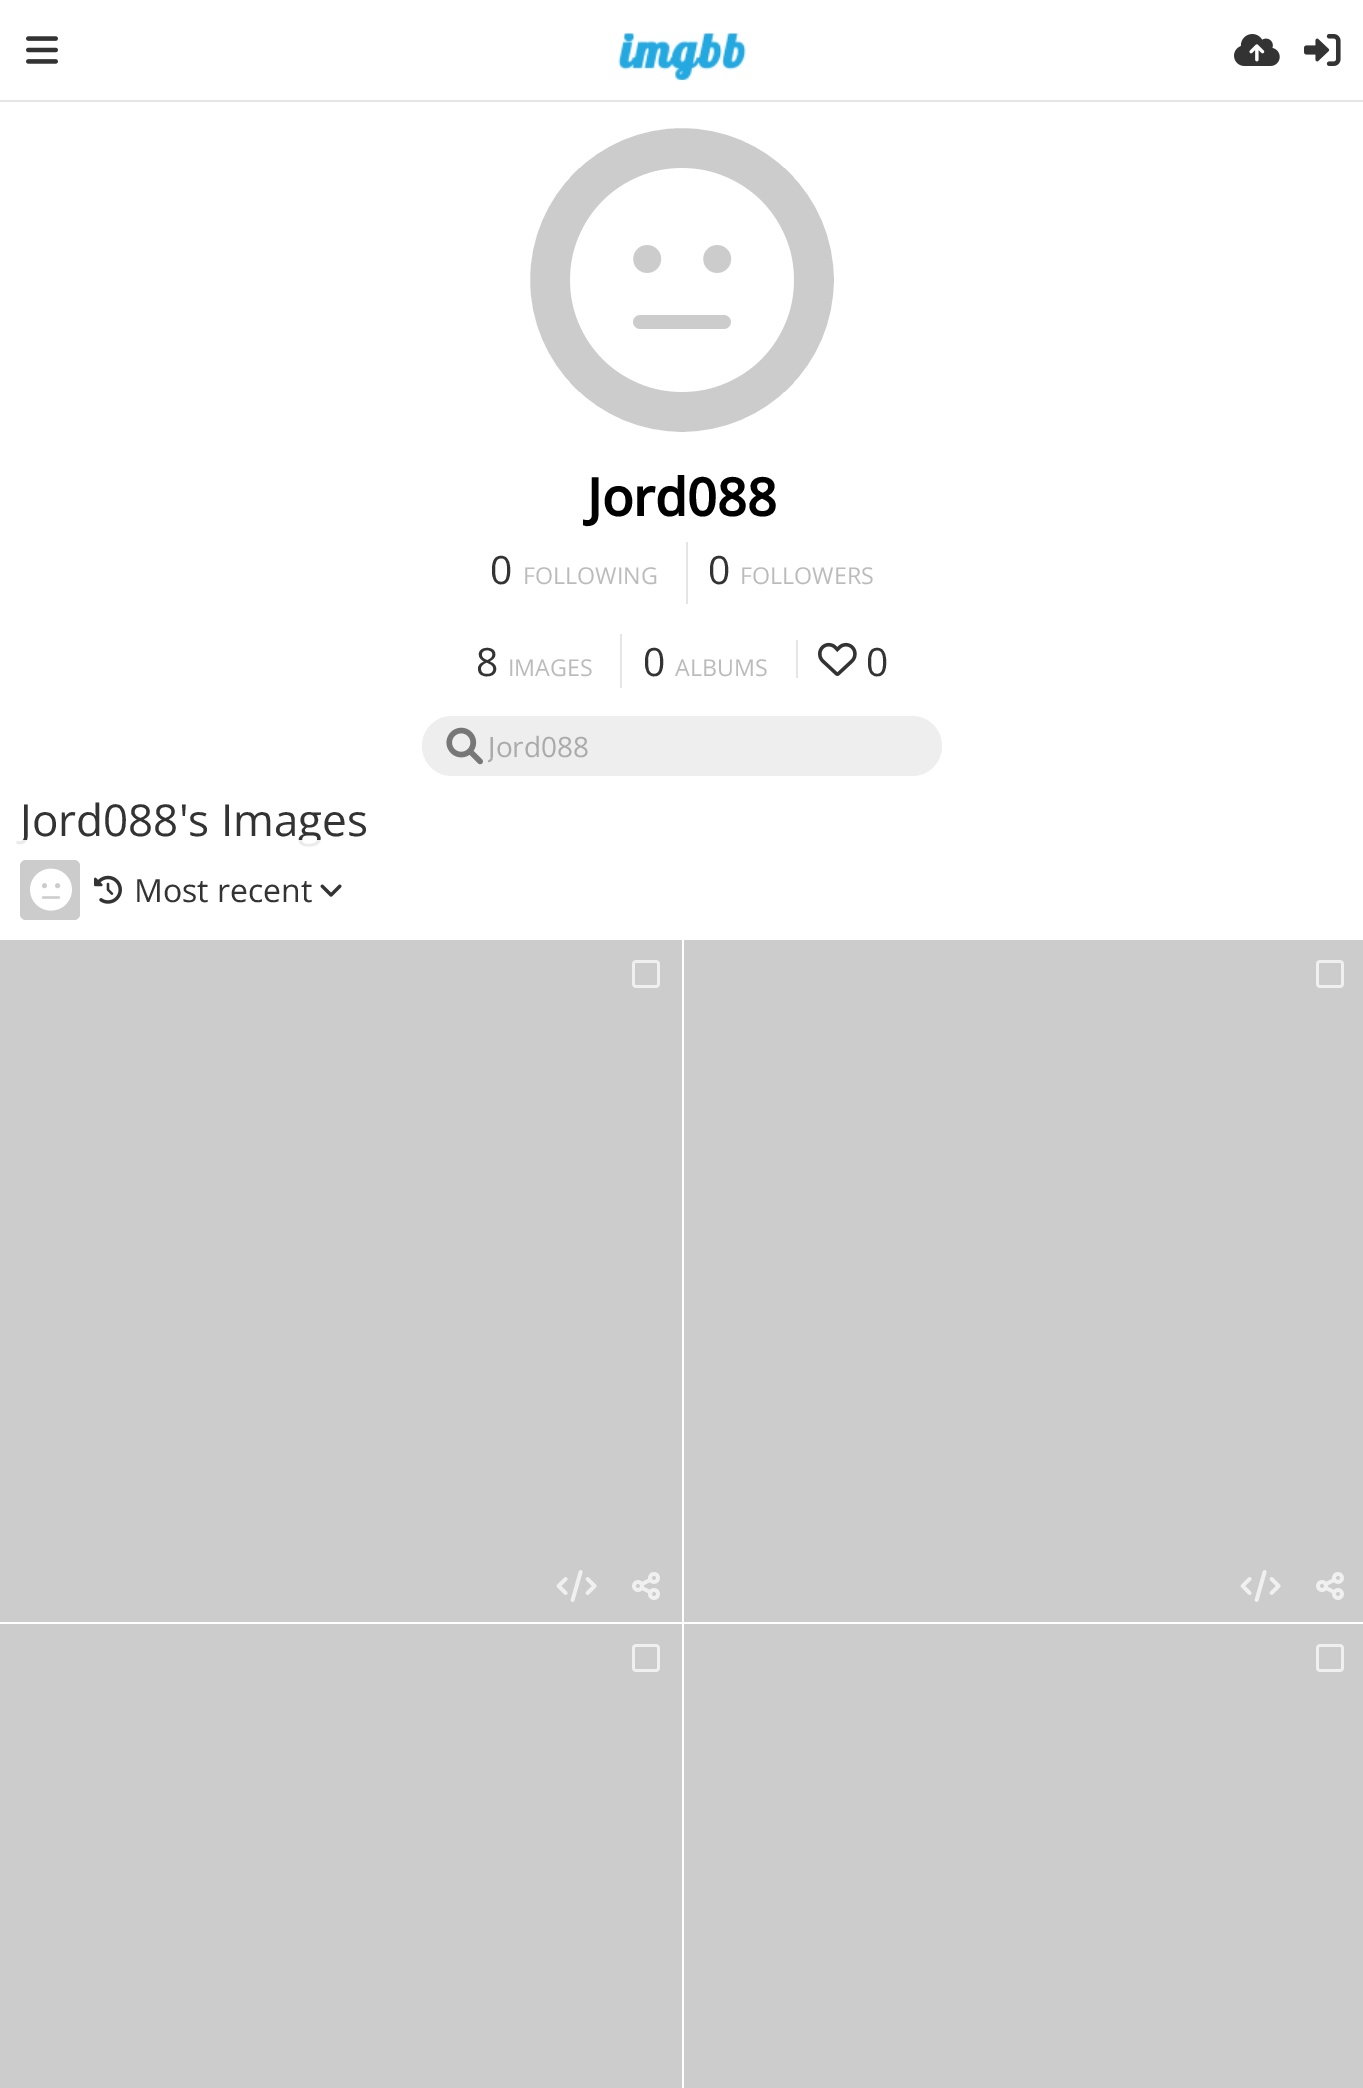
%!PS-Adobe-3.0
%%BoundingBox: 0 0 1363 2088
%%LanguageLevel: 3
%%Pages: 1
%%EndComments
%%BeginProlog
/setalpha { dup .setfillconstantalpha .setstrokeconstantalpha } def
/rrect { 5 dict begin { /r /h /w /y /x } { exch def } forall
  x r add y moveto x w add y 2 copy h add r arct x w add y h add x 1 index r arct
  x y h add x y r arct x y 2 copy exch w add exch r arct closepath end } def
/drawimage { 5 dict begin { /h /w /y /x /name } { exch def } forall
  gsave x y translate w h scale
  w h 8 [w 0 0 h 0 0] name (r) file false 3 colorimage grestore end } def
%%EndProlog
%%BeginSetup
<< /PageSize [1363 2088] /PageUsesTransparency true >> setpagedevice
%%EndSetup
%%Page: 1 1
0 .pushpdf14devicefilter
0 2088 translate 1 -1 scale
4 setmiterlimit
1 setgray
0 0 1363 2088 rectfill
(images/1.raw) 26 36 32 28 drawimage
(images/2.raw) 618 33 128 47 drawimage
(images/3.raw) 1234 34 46 32 drawimage
(images/4.raw) 1304 34 37 32 drawimage
0.902 setgray
0 100 1363 2 rectfill
0.8 setgray
newpath 682 280 156 0 360 arc closepath gsave fill grestore
1 setgray
8 setlinewidth
stroke
(images/5.raw) 570 168 224 224 drawimage
0.898 setgray
686 542 2 62 rectfill
620 634 2 54 rectfill
(images/6.raw) 818 642 39 34 drawimage
796 640 2 38 rectfill
0.933 setgray
422 716 520 60 30 rrect fill
(images/7.raw) 446 727 37 38 drawimage
0.8 setgray
20 860 60 60 6 rrect fill
(images/8.raw) 30 868 42 43 drawimage
(images/9.raw) 94 875 28 29 drawimage
(images/10.raw) 320 884 22 13 drawimage
0 940 682 682 rectfill
(images/11.raw) 632 960 28 28 drawimage
(images/12.raw) 556 1570 41 32 drawimage
(images/13.raw) 632 1572 28 28 drawimage
684 940 679 682 rectfill
(images/11.raw) 1316 960 28 28 drawimage
(images/12.raw) 1240 1570 41 32 drawimage
(images/13.raw) 1316 1572 28 28 drawimage
0 1624 682 464 rectfill
(images/11.raw) 632 1644 28 28 drawimage
684 1624 679 464 rectfill
(images/11.raw) 1316 1644 28 28 drawimage
/OpenSans-Bold [52 0 0 -52 0 0] selectfont
0 setgray
587 516 moveto (Jord088) show
/OpenSans-Regular [39 0 0 -39 0 0] selectfont
0.2 setgray
490 584 moveto (0) show
/OpenSans-Regular [23.25 0 0 -23.25 0 0] selectfont
0.733 setgray
523 584 moveto (FOLLOWING) show
/OpenSans-Regular [39 0 0 -39 0 0] selectfont
0.2 setgray
708 584 moveto (0) show
/OpenSans-Regular [23.25 0 0 -23.25 0 0] selectfont
0.733 setgray
740 584 moveto (FOLLOWERS) show
/OpenSans-Regular [39 0 0 -39 0 0] selectfont
0.2 setgray
476 676 moveto (8) show
/OpenSans-Regular [23.25 0 0 -23.25 0 0] selectfont
0.733 setgray
508 676 moveto (IMAGES) show
/OpenSans-Regular [39 0 0 -39 0 0] selectfont
0.2 setgray
643 676 moveto (0) show
/OpenSans-Regular [23.25 0 0 -23.25 0 0] selectfont
0.733 setgray
675 676 moveto (ALBUMS) show
/OpenSans-Regular [39 0 0 -39 0 0] selectfont
0.2 setgray
866 676 moveto (0) show
gsave
488 726 388 38 rectclip
/OpenSans-Regular [28 0 0 -28 0 0] selectfont
0.667 setgray
488 757 moveto (Jord088) show
grestore
/OpenSans-Regular [44 0 0 -44 0 0] selectfont
20 836 moveto (Jord088's Images) show
0.9 setalpha
1 setgray
16 840 305 7 rectfill
/OpenSans-Regular [32 0 0 -32 0 0] selectfont
1 setalpha
0.2 setgray
134 902 moveto (Most recent) show
.poppdf14devicefilter showpage
%%EOF
